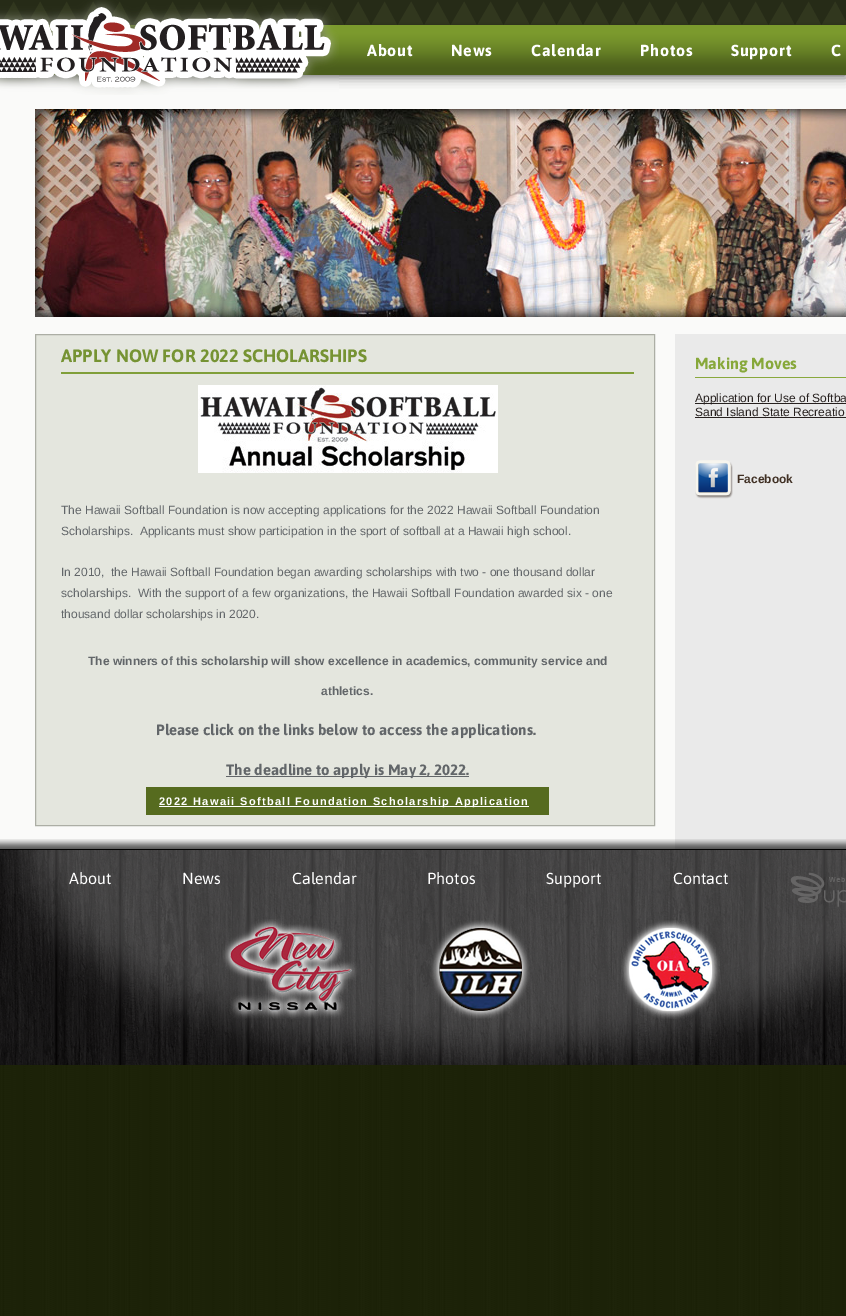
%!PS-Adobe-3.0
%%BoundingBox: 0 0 846 1316
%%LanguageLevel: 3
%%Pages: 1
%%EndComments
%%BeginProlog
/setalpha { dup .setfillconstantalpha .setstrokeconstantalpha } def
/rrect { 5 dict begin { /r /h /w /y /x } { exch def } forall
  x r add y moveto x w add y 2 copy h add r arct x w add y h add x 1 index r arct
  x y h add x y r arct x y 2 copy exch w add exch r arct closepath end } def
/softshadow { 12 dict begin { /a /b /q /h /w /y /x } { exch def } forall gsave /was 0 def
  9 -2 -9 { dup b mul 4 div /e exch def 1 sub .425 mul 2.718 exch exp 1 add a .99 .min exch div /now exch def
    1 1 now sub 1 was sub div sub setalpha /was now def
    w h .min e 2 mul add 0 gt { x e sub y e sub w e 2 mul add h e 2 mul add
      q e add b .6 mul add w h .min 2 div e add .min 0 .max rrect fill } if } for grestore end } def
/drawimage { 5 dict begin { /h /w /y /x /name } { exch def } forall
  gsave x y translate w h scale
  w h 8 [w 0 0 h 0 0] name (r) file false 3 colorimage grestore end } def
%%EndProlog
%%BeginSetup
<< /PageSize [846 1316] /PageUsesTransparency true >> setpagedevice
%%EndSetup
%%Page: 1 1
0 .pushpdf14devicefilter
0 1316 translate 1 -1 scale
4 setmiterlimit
1 setgray
0 0 846 1316 rectfill
(images/1.raw) 0 1065 846 251 drawimage
0.98 0.98 0.976 setrgbcolor
0 75 846 259 rectfill
0 setgray
0 0 846 75 0 6 0.8 softshadow
(images/2.raw) 0 0 846 75 drawimage
(images/3.raw) 0 0 339 95 drawimage
(images/4.raw) 35 109 811 208 drawimage
0.98 0.98 0.976 setrgbcolor
0 334 675 515 rectfill
0.918 setgray
675 334 171 515 rectfill
0.894 0.902 0.871 setrgbcolor
newpath 35.5 334.5 moveto 654.5 334.5 lineto 654.5 825.5 lineto 35.5 825.5 lineto closepath gsave fill grestore
0.675 0.682 0.647 setrgbcolor
stroke
0.502 0.624 0.224 setrgbcolor
61 372 573 2 rectfill
(images/5.raw) 198 385 300 88 drawimage
0.384 0.4 0.412 setrgbcolor
226 776 243 1 rectfill
0.337 0.42 0.122 setrgbcolor
146 787 403 28 rectfill
1 setgray
159 806 370 1 rectfill
0.537 0.663 0.239 setrgbcolor
695 377 151 1 rectfill
0.153 0.129 0.122 setrgbcolor
695 403 151 1 rectfill
695 417 151 1 rectfill
(images/6.raw) 695 460 38 39 drawimage
(images/7.raw) 0 839 846 10 drawimage
(images/8.raw) 0 839 846 226 drawimage
(images/9.raw) 790 872 56 35 drawimage
(images/10.raw) 223 919 135 100 drawimage
(images/11.raw) 431 920 99 99 drawimage
(images/12.raw) 621 920 99 99 drawimage
/Asap-Bold [16 0 0 -16 0 0] selectfont
1 setgray
367 56 moveto 0.75 0 (About) ashow
451 56 moveto 0.75 0 (News) ashow
531 56 moveto 0.75 0 (Calendar) ashow
640 56 moveto 0.75 0 (Photos) ashow
731 56 moveto 0.75 0 (Support) ashow
831 56 moveto 0.75 0 (C) ashow
/Asap-Bold [18 0 0 -18 0 0] selectfont
0.463 0.576 0.2 setrgbcolor
61 362 moveto (APPLY NOW FOR 2022 SCHOLARSHIPS) show
/LiberationSans-Regular [12 0 0 -12 0 0] selectfont
0.384 0.4 0.412 setrgbcolor
61 514 moveto (The Hawaii Softball Foundation is now accepting applications for the 2022 Hawaii Softball Foundation) show
61 535 moveto (Scholarships.  Applicants must show participation in the sport of softball at a Hawaii high school.) show
61 576 moveto (In 2010,  the Hawaii Softball Foundation began awarding scholarships with two - one thousand dollar) show
61 597 moveto (scholarships.  With the support of a few organizations, the Hawaii Softball Foundation awarded six - one) show
61 618 moveto (thousand dollar scholarships in 2020.) show
/LiberationSans-Bold [12 0 0 -12 0 0] selectfont
88 665 moveto (The winners of this scholarship will show excellence in academics, community service and) show
321 695 moveto (athletics.) show
/Asap-Bold [15 0 0 -15 0 0] selectfont
156 735 moveto (Please click on the links below to access the applications.) show
226 775 moveto (The deadline to apply is May 2, 2022.) show
/LiberationSans-Bold [11 0 0 -11 0 0] selectfont
1 setgray
159 805 moveto 1.32 0 (2022 Hawaii Softball Foundation Scholarship Application) ashow
/Asap-Bold [16 0 0 -16 0 0] selectfont
0.529 0.659 0.227 setrgbcolor
695 369 moveto (Making Moves) show
/LiberationSans-Regular [12 0 0 -12 0 0] selectfont
0.153 0.129 0.122 setrgbcolor
695 402 moveto (Application for Use of Softba) show
695 416 moveto (Sand Island State Recreatio) show
/LiberationSans-Bold [12 0 0 -12 0 0] selectfont
0.251 0.188 0.141 setrgbcolor
737 483 moveto (Facebook) show
/Asap-Regular [16 0 0 -16 0 0] selectfont
1 setgray
69 884 moveto (About) show
182 884 moveto (News) show
292 884 moveto (Calendar) show
427 884 moveto (Photos) show
546 884 moveto (Support) show
673 884 moveto (Contact) show
.poppdf14devicefilter showpage
%%EOF
